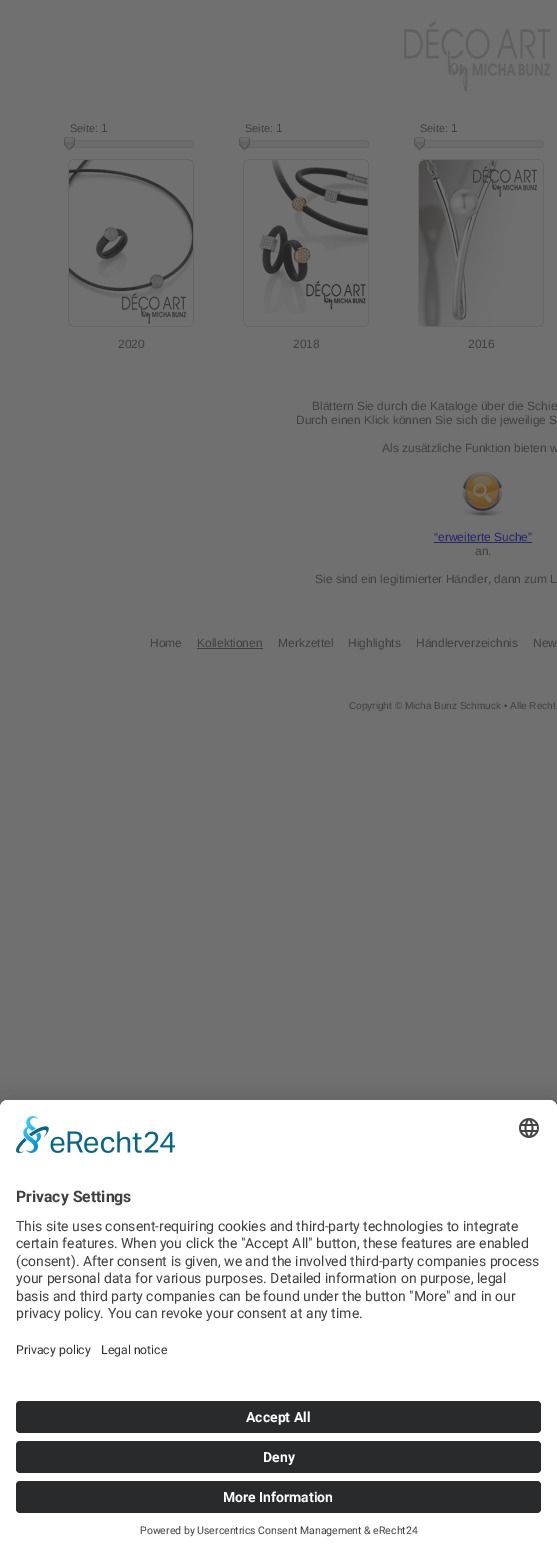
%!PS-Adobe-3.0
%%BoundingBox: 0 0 557 1553
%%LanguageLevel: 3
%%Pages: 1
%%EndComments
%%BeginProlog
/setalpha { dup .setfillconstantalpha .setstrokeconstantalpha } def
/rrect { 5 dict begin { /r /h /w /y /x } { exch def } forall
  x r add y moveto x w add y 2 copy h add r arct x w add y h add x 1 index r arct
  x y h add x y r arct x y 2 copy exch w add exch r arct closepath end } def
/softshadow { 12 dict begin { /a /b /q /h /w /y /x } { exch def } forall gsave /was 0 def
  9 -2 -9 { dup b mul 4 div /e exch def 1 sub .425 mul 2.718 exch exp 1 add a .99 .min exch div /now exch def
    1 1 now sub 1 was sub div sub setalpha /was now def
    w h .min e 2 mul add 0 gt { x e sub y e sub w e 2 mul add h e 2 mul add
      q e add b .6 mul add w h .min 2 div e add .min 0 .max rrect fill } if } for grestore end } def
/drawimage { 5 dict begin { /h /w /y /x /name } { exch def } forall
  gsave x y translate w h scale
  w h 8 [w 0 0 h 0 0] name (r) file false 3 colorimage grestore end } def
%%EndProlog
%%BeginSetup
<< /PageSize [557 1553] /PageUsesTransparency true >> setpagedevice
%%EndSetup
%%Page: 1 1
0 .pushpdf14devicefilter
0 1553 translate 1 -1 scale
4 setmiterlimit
0.439 setgray
0 0 557 1553 rectfill
(images/1.raw) 404 16 148 79 drawimage
(images/3.raw) 70 140 61 8 drawimage
(images/2.raw) 64 137 11 14 drawimage
(images/4.raw) 131 140 63 8 drawimage
(images/5.raw) 68 159 126 168 drawimage
(images/3.raw) 245 140 61 8 drawimage
(images/2.raw) 239 137 11 14 drawimage
(images/4.raw) 306 140 63 8 drawimage
(images/6.raw) 243 159 126 168 drawimage
(images/3.raw) 420 140 61 8 drawimage
(images/2.raw) 414 137 11 14 drawimage
(images/4.raw) 481 140 63 8 drawimage
(images/7.raw) 418 159 126 168 drawimage
(images/8.raw) 461 469 48 47 drawimage
0.141 0.141 0.42 setrgbcolor
434 542 98 1 rectfill
0.247 setgray
197 648 66 1 rectfill
0 setgray
0 1120 557 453 8 14 0.3 softshadow
0 1105 557 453 8 13 0.22 softshadow
1 setgray
newpath 8 1100 moveto 549 1100 lineto 553.5 1100 557 1103.5 557 1108 curveto 557 1553 lineto 0 1553 lineto 0 1108 lineto 0 1103.5 3.5 1100 8 1100 curveto closepath fill
newpath 8 1100 moveto 549 1100 lineto 553.5 1100 557 1103.5 557 1108 curveto 557 1389 lineto 0 1389 lineto 0 1108 lineto 0 1103.5 3.5 1100 8 1100 curveto closepath fill
(images/9.raw) 16 1116 160 37 drawimage
(images/10.raw) 519 1118 20 20 drawimage
0.161 0.165 0.169 setrgbcolor
16 1401 525 32 4 rrect fill
16 1441 525 32 4 rrect fill
16 1481 525 32 4 rrect fill
/LiberationSans-Regular [11 0 0 -11 0 0] selectfont
0.247 setgray
70 132 moveto (Seite:) show
/LiberationSans-Regular [12 0 0 -12 0 0] selectfont
101 132 moveto (1) show
/LiberationSans-Regular [11 0 0 -11 0 0] selectfont
245 132 moveto (Seite:) show
/LiberationSans-Regular [12 0 0 -12 0 0] selectfont
276 132 moveto (1) show
/LiberationSans-Regular [11 0 0 -11 0 0] selectfont
420 132 moveto (Seite:) show
/LiberationSans-Regular [12 0 0 -12 0 0] selectfont
451 132 moveto (1) show
118 348 moveto (2020) show
293 348 moveto (2018) show
468 348 moveto (2016) show
312 410 moveto (Blättern Sie durch die Kataloge über die Schie) show
296 424 moveto (Durch einen Klick können Sie sich die jeweilige S) show
382 452 moveto (Als zusätzliche Funktion bieten w) show
0.141 0.141 0.42 setrgbcolor
434 541 moveto (“erweiterte Suche”) show
0.247 setgray
475 555 moveto (an.) show
315 583 moveto (Sie sind ein legitimierter Händler, dann zum L) show
150 647 moveto (Home) show
197 647 moveto (Kollektionen) show
278 647 moveto (Merkzettel) show
348 647 moveto (Highlights) show
416 647 moveto (Händlerverzeichnis) show
533 647 moveto (New) show
/LiberationSans-Regular [10 0 0 -10 0 0] selectfont
349 709 moveto (Copyright © Micha Bunz Schmuck • Alle Recht) show
/Roboto-Bold [15.75 0 0 -15.75 0 0] selectfont
16 1202 moveto (Privacy Settings) show
/Roboto-Regular [14 0 0 -14 0 0] selectfont
16 1231 moveto (This site uses consent-requiring cookies and third-party technologies to integrate) show
16 1248 moveto (certain features. When you click the "Accept All" button, these features are enabled) show
16 1266 moveto (\(consent\). After consent is given, we and the involved third-party companies process) show
16 1283 moveto (your personal data for various purposes. Detailed information on purpose, legal) show
16 1301 moveto (basis and third party companies can be found under the button "More" and in our) show
16 1318 moveto (privacy policy. You can revoke your consent at any time.) show
/Roboto-Regular [12.25 0 0 -12.25 0 0] selectfont
0.188 setgray
16 1354 moveto (Privacy policy) show
101 1354 moveto (Legal notice) show
/Roboto-Bold [14 0 0 -14 0 0] selectfont
1 setgray
246 1422 moveto (Accept All) show
263 1462 moveto (Deny) show
223 1502 moveto (More Information) show
/Roboto-Regular [10.5 0 0 -10.5 0 0] selectfont
0.247 setgray
140 1534 moveto (Powered by Usercentrics Consent Management & eRecht24) show
.poppdf14devicefilter showpage
%%EOF
